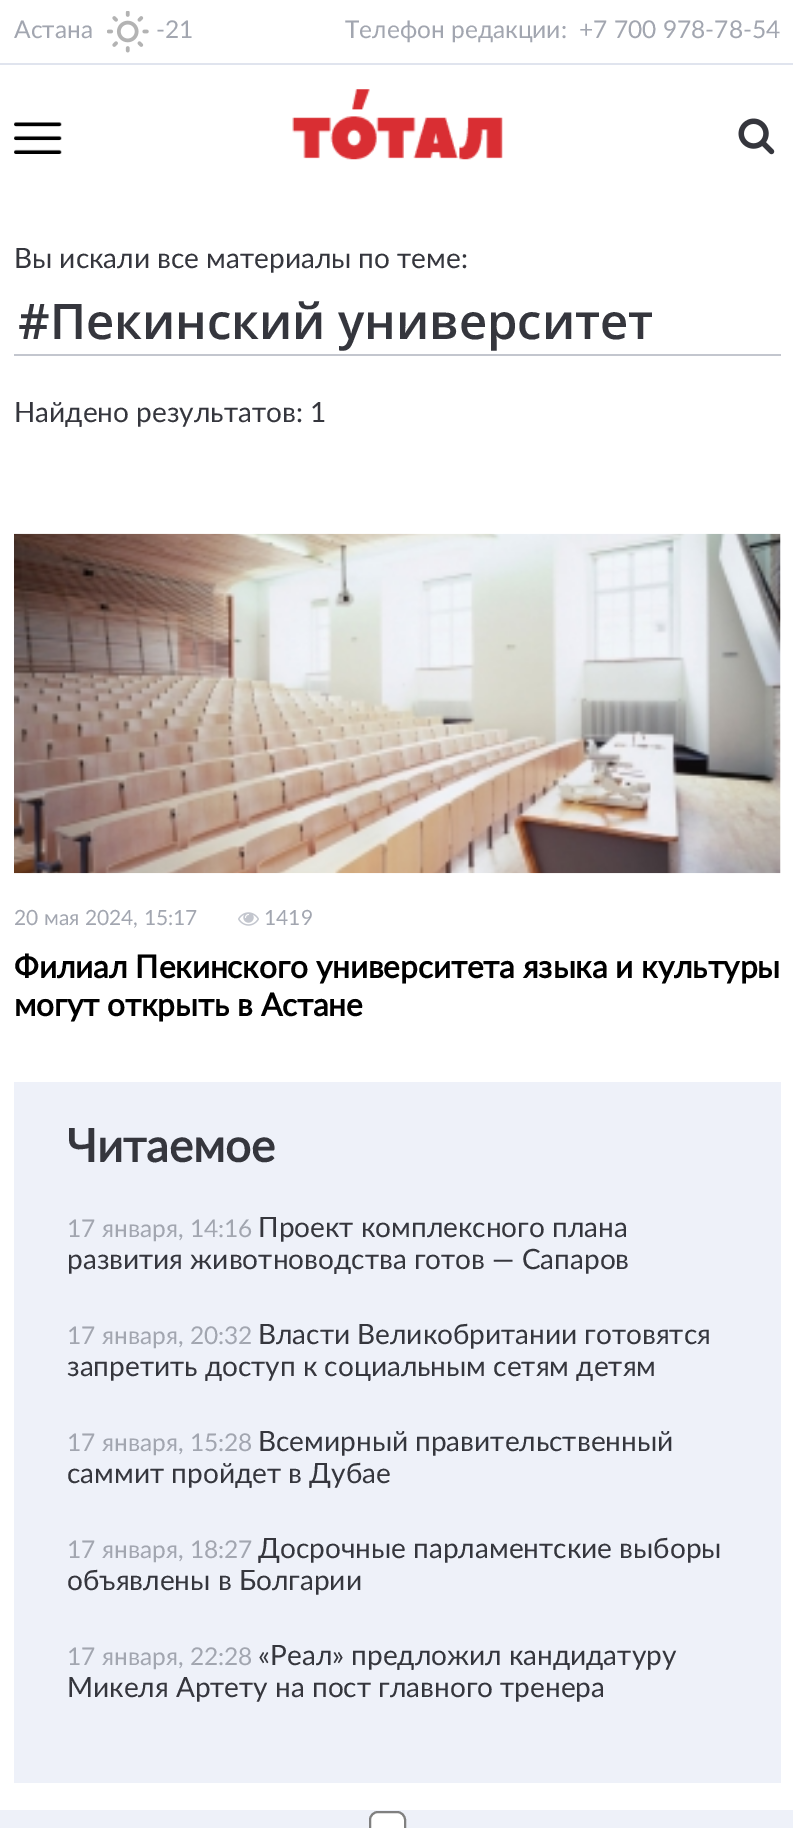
%!PS-Adobe-3.0
%%BoundingBox: 0 0 793 1828
%%LanguageLevel: 3
%%Pages: 1
%%EndComments
%%BeginProlog
/rrect { 5 dict begin { /r /h /w /y /x } { exch def } forall
  x r add y moveto x w add y 2 copy h add r arct x w add y h add x 1 index r arct
  x y h add x y r arct x y 2 copy exch w add exch r arct closepath end } def
/drawimage { 5 dict begin { /h /w /y /x /name } { exch def } forall
  gsave x y translate w h scale
  w h 8 [w 0 0 h 0 0] name (r) file false 3 colorimage grestore end } def
%%EndProlog
%%BeginSetup
<< /PageSize [793 1828] >> setpagedevice
%%EndSetup
%%Page: 1 1
0 1828 translate 1 -1 scale
4 setmiterlimit
1 setgray
0 0 793 1828 rectfill
0.878 0.894 0.933 setrgbcolor
0 63 793 2 rectfill
(images/1.raw) 107 11 42 42 drawimage
(images/2.raw) 14 122 48 32 drawimage
(images/3.raw) 292 89 211 71 drawimage
(images/4.raw) 738 118 37 37 drawimage
0.765 0.776 0.808 setrgbcolor
14 354 767 2 rectfill
(images/5.raw) 14 533 767 341 drawimage
(images/6.raw) 238 912 21 14 drawimage
0.933 0.945 0.976 setrgbcolor
14 1082 767 701 rectfill
0 1810 793 18 rectfill
1 setgray
370 1812 35 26 8 rrect gsave fill grestore
0.502 setgray
2 setlinewidth
stroke
/Lato-Regular [24.5 0 0 -24.5 0 0] selectfont
0.635 0.651 0.69 setrgbcolor
14 38 moveto (Астана) show
156 38 moveto (-21) show
345 38 moveto (Телефон редакции:) show
579 38 moveto (+7 700 978-78-54) show
/Lato-Regular [28 0 0 -28 0 0] selectfont
0.208 0.212 0.239 setrgbcolor
14 268 moveto (Вы искали все материалы по теме:) show
/OpenSans-SemiBold [49 0 0 -49 0 0] selectfont
18 339 moveto (#Пекинский университет) show
/Lato-Regular [28 0 0 -28 0 0] selectfont
14 422 moveto (Найдено результатов: 1) show
/Lato-Regular [21 0 0 -21 0 0] selectfont
0.635 0.651 0.69 setrgbcolor
14 925 moveto (20 мая 2024, 15:17) show
264 925 moveto (1419) show
/Lato-Bold [31.5 0 0 -31.5 0 0] selectfont
0 setgray
14 978 moveto (Филиал Пекинского университета языка и культуры) show
14 1016 moveto (могут открыть в Астане) show
/Lato-Bold [45.5 0 0 -45.5 0 0] selectfont
0.208 0.212 0.239 setrgbcolor
67 1162 moveto (Читаемое) show
/Lato-Regular [24.5 0 0 -24.5 0 0] selectfont
0.635 0.651 0.69 setrgbcolor
67 1237 moveto (17 января, 14:16) show
/Lato-Regular [28 0 0 -28 0 0] selectfont
0.208 0.212 0.239 setrgbcolor
258 1237 moveto (Проект комплексного плана) show
67 1269 moveto (развития животноводства готов — Сапаров) show
/Lato-Regular [24.5 0 0 -24.5 0 0] selectfont
0.635 0.651 0.69 setrgbcolor
67 1344 moveto (17 января, 20:32) show
/Lato-Regular [28 0 0 -28 0 0] selectfont
0.208 0.212 0.239 setrgbcolor
258 1344 moveto (Власти Великобритании готовятся) show
67 1376 moveto (запретить доступ к социальным сетям детям) show
/Lato-Regular [24.5 0 0 -24.5 0 0] selectfont
0.635 0.651 0.69 setrgbcolor
67 1451 moveto (17 января, 15:28) show
/Lato-Regular [28 0 0 -28 0 0] selectfont
0.208 0.212 0.239 setrgbcolor
258 1451 moveto (Всемирный правительственный) show
67 1483 moveto (саммит пройдет в Дубае) show
/Lato-Regular [24.5 0 0 -24.5 0 0] selectfont
0.635 0.651 0.69 setrgbcolor
67 1558 moveto (17 января, 18:27) show
/Lato-Regular [28 0 0 -28 0 0] selectfont
0.208 0.212 0.239 setrgbcolor
258 1558 moveto (Досрочные парламентские выборы) show
67 1590 moveto (объявлены в Болгарии) show
/Lato-Regular [24.5 0 0 -24.5 0 0] selectfont
0.635 0.651 0.69 setrgbcolor
67 1665 moveto (17 января, 22:28) show
/Lato-Regular [28 0 0 -28 0 0] selectfont
0.208 0.212 0.239 setrgbcolor
258 1665 moveto («Реал» предложил кандидатуру) show
67 1697 moveto (Микеля Артету на пост главного тренера) show
showpage
%%EOF
